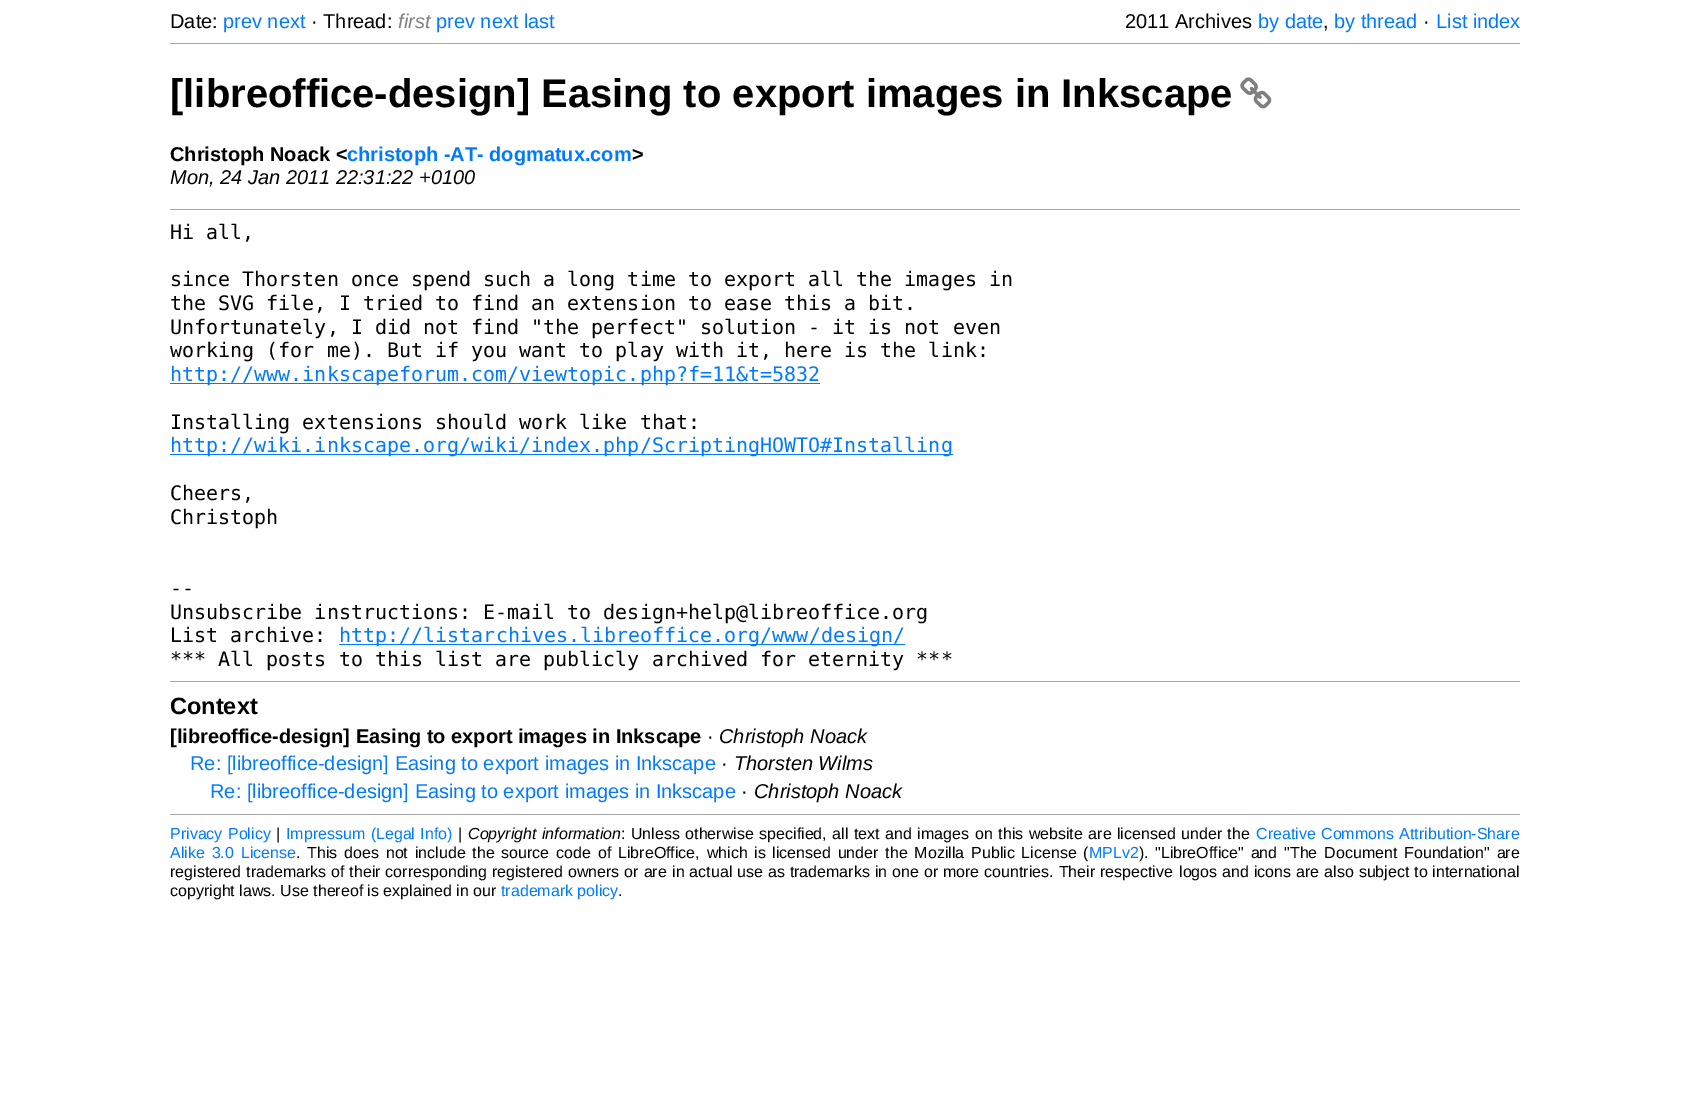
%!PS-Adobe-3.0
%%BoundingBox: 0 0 1690 1112
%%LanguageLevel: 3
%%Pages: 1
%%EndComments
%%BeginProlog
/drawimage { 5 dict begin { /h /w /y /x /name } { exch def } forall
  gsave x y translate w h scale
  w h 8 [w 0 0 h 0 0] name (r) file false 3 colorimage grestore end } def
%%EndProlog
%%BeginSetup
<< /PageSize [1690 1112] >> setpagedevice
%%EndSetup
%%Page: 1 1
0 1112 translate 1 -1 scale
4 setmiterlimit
1 setgray
0 0 1690 1112 rectfill
0.651 setgray
170 43 1350 1 rectfill
(images/1.raw) 1240 77 32 32 drawimage
170 209 1350 1 rectfill
0 0.482 1 setrgbcolor
170 383 650 1 rectfill
170 454 783 1 rectfill
339 644 566 1 rectfill
0.651 setgray
170 681 1350 1 rectfill
170 814 1350 1 rectfill
/LiberationSans-Regular [20 0 0 -20 0 0] selectfont
0 setgray
170 28 moveto (Date:) show
0 0.482 1 setrgbcolor
223 28 moveto (prev next) show
0 setgray
311 28 moveto (· Thread:) show
/LiberationSans-Italic [20 0 0 -20 0 0] selectfont
0.502 setgray
398 28 moveto (first) show
/LiberationSans-Regular [20 0 0 -20 0 0] selectfont
0 0.482 1 setrgbcolor
436 28 moveto (prev next last) show
0 setgray
1125 28 moveto (2011 Archives) show
0 0.482 1 setrgbcolor
1258 28 moveto (by date) show
1334 28 moveto (by thread) show
0 setgray
1423 28 moveto (·) show
0 0.482 1 setrgbcolor
1436 28 moveto (List index) show
0 setgray
1323 28 moveto (,) show
/LiberationSans-Bold [40 0 0 -40 0 0] selectfont
170 107 moveto ([libreoffice-design] Easing to export images in Inkscape) show
/LiberationSans-Bold [20 0 0 -20 0 0] selectfont
170 161 moveto (Christoph Noack <) show
0 0.482 1 setrgbcolor
347 161 moveto (christoph -AT- dogmatux.com) show
0 setgray
632 161 moveto (>) show
/LiberationSans-Italic [20 0 0 -20 0 0] selectfont
170 184 moveto (Mon, 24 Jan 2011 22:31:22 +0100) show
/DejaVuSansMono-Regular [20 0 0 -20 0 0] selectfont
170 239 moveto (Hi all,) show
170 286 moveto (since Thorsten once spend such a long time to export all the images in) show
170 310 moveto (the SVG file, I tried to find an extension to ease this a bit.) show
170 334 moveto (Unfortunately, I did not find "the perfect" solution - it is not even) show
170 357 moveto (working \(for me\). But if you want to play with it, here is the link:) show
0 0.482 1 setrgbcolor
170 381 moveto (http://www.inkscapeforum.com/viewtopic.php?f=11&t=5832) show
0 setgray
170 429 moveto (Installing extensions should work like that:) show
0 0.482 1 setrgbcolor
170 452 moveto (http://wiki.inkscape.org/wiki/index.php/ScriptingHOWTO#Installing) show
0 setgray
170 500 moveto (Cheers,) show
170 524 moveto (Christoph) show
170 595 moveto (--) show
170 619 moveto (Unsubscribe instructions: E-mail to design+help@libreoffice.org) show
170 642 moveto (List archive:) show
0 0.482 1 setrgbcolor
339 642 moveto (http://listarchives.libreoffice.org/www/design/) show
0 setgray
170 666 moveto (*** All posts to this list are publicly archived for eternity ***) show
/LiberationSans-Bold [23.5 0 0 -23.5 0 0] selectfont
170 714 moveto (Context) show
/LiberationSans-Bold [20 0 0 -20 0 0] selectfont
170 743 moveto ([libreoffice-design] Easing to export images in Inkscape) show
/LiberationSans-Regular [20 0 0 -20 0 0] selectfont
707 743 moveto (·) show
/LiberationSans-Italic [20 0 0 -20 0 0] selectfont
719 743 moveto (Christoph Noack) show
/LiberationSans-Regular [20 0 0 -20 0 0] selectfont
0 0.482 1 setrgbcolor
190 770 moveto (Re: [libreoffice-design] Easing to export images in Inkscape) show
0 setgray
721 770 moveto (·) show
/LiberationSans-Italic [20 0 0 -20 0 0] selectfont
734 770 moveto (Thorsten Wilms) show
/LiberationSans-Regular [20 0 0 -20 0 0] selectfont
0 0.482 1 setrgbcolor
210 798 moveto (Re: [libreoffice-design] Easing to export images in Inkscape) show
0 setgray
741 798 moveto (·) show
/LiberationSans-Italic [20 0 0 -20 0 0] selectfont
754 798 moveto (Christoph Noack) show
/LiberationSans-Regular [16 0 0 -16 0 0] selectfont
0 0.482 1 setrgbcolor
170 839 moveto 1 0 32 (Privacy Policy) widthshow
0 setgray
276 839 moveto (|) show
0 0.482 1 setrgbcolor
286 839 moveto 1 0 32 (Impressum \(Legal Info\)) widthshow
0 setgray
458 839 moveto (|) show
/LiberationSans-Italic [16 0 0 -16 0 0] selectfont
468 839 moveto 1 0 32 (Copyright information) widthshow
/LiberationSans-Regular [16 0 0 -16 0 0] selectfont
621 839 moveto 1 0 32 (: Unless otherwise specified, all text and images) widthshow
975 839 moveto 1 0 32 (on this website are licensed under the) widthshow
0 0.482 1 setrgbcolor
1256 839 moveto 1 0 32 (Creative Commons Attribution-Share) widthshow
170 858 moveto 2.4 0 32 (Alike 3.0 License) widthshow
0 setgray
296 858 moveto (.) show
307 858 moveto 2.4 0 32 (This does not include the source code of LibreOffice, which is) widthshow
772 858 moveto 2.4 0 32 (licensed under the Mozilla Public License \() widthshow
0 0.482 1 setrgbcolor
1089 858 moveto (MPLv2) show
0 setgray
1139 858 moveto (\).) show
1155 858 moveto 2.4 0 32 ("LibreOffice" and "The Document Foundation" are) widthshow
170 877 moveto 0.5 0 32 (registered trademarks of their corresponding registered owners or are) widthshow
672 877 moveto 0.5 0 32 (in actual use as trademarks in one or more countries. Their respective) widthshow
1179 877 moveto 0.5 0 32 (logos and icons are also subject to international) widthshow
170 896 moveto (copyright laws. Use thereof is explained in our) show
0 0.482 1 setrgbcolor
501 896 moveto (trademark policy) show
0 setgray
618 896 moveto (.) show
showpage
%%EOF
